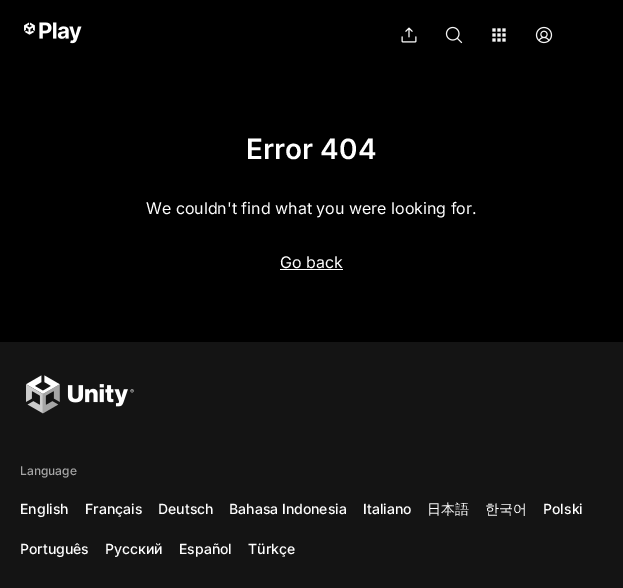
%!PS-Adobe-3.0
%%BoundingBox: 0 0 623 588
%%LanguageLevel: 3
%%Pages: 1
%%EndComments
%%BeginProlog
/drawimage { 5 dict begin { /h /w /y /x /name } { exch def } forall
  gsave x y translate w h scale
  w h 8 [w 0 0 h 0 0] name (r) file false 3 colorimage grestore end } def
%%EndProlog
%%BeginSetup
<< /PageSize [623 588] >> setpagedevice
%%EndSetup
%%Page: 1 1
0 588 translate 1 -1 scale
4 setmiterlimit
0 setgray
0 0 623 588 rectfill
(images/1.raw) 24 22 58 22 drawimage
(images/2.raw) 401 27 16 16 drawimage
(images/3.raw) 445 26 18 18 drawimage
(images/4.raw) 492 28 14 14 drawimage
(images/5.raw) 535 26 18 18 drawimage
1 setgray
280 269 63 1 rectfill
0.078 setgray
0 342 623 246 rectfill
(images/6.raw) 26 375 108 39 drawimage
/Inter-SemiBold [28 0 0 -28 0 0] selectfont
1 setgray
246 159 moveto (Error 404) show
/Inter-Regular [16 0 0 -16 0 0] selectfont
146 214 moveto (We couldn't find what you were looking for.) show
280 268 moveto (Go back) show
/Inter-Medium [12 0 0 -12 0 0] selectfont
0.651 setgray
20 475 moveto (Language) show
/Inter-Medium [14 0 0 -14 0 0] selectfont
1 setgray
20 514 moveto (English) show
85 514 moveto (Français) show
158 514 moveto (Deutsch) show
229 514 moveto (Bahasa Indonesia) show
363 514 moveto (Italiano) show
/WenQuanYiZenHei-Medium [14 0 0 -14 0 0] selectfont
427 514 moveto (日本語) show
485 514 moveto (한국어) show
/Inter-Medium [14 0 0 -14 0 0] selectfont
543 514 moveto (Polski) show
20 554 moveto (Português) show
105 554 moveto (Русский) show
179 554 moveto (Español) show
248 554 moveto (Türkçe) show
showpage
%%EOF
